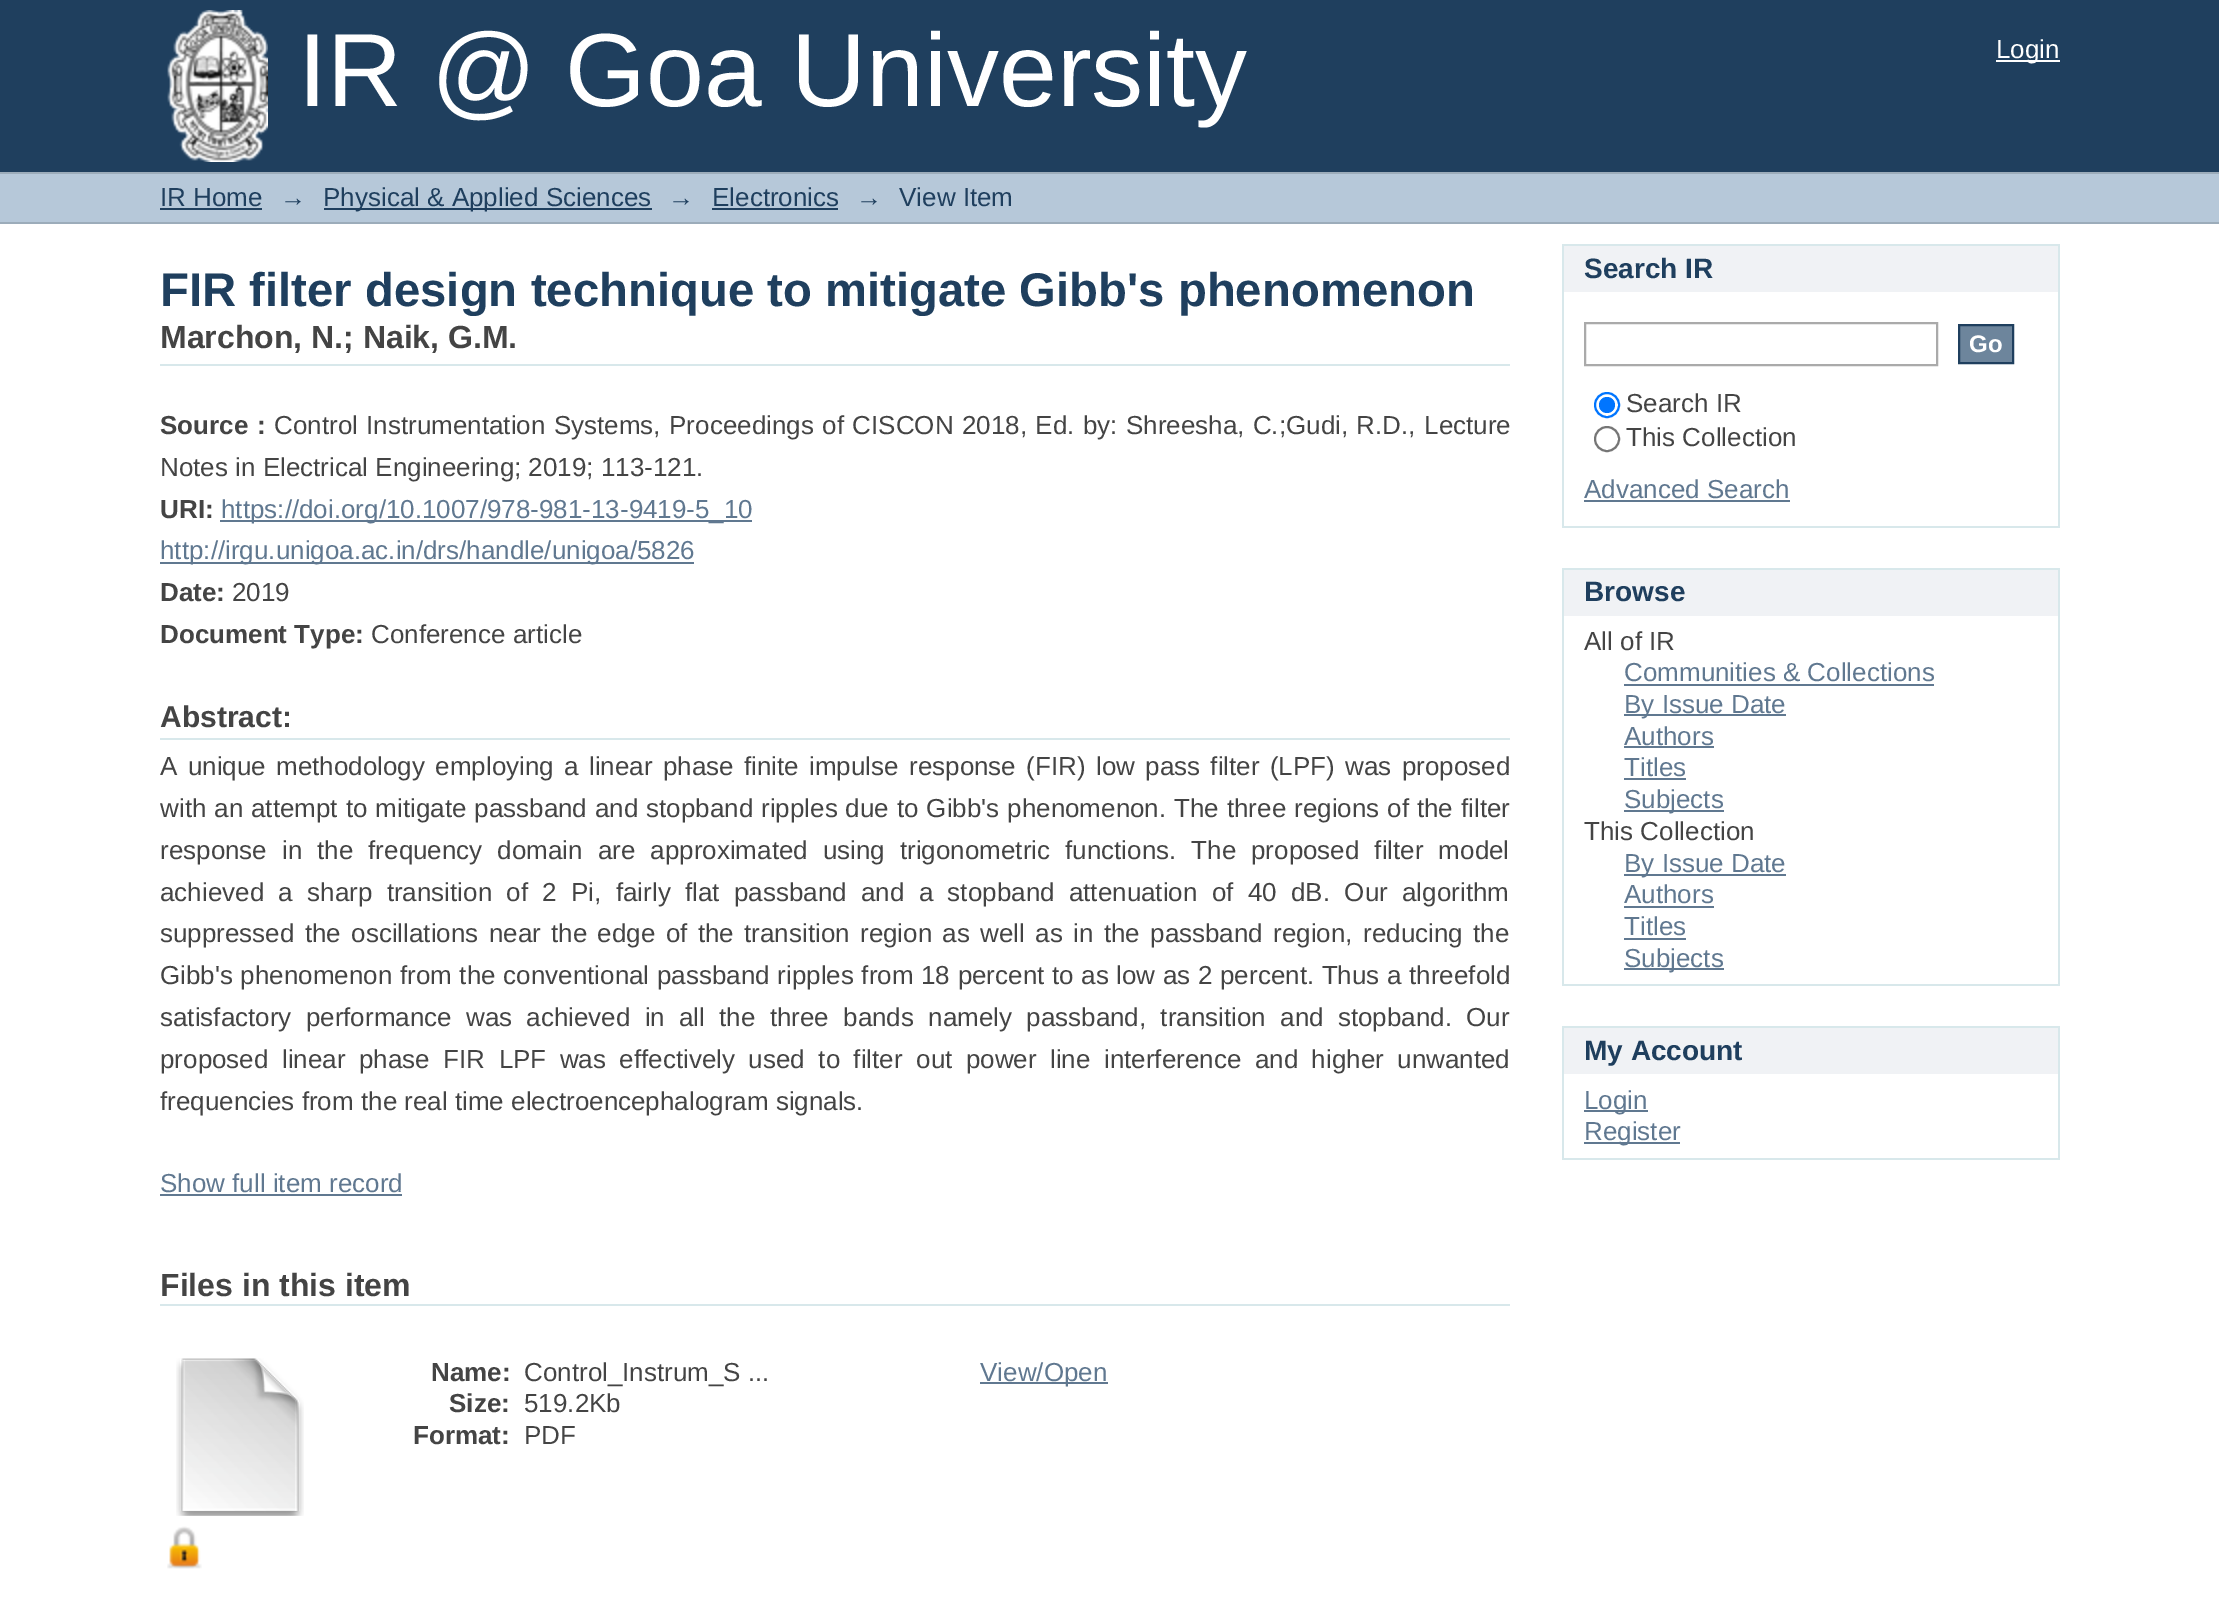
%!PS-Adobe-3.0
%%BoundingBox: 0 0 2219 1606
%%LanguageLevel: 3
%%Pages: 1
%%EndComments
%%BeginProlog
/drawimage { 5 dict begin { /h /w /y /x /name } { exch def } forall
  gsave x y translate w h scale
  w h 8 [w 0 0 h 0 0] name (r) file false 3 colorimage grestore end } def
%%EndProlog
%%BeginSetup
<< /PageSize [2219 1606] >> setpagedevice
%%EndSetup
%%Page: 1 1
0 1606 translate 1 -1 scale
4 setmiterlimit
1 setgray
0 0 2219 1606 rectfill
0.122 0.247 0.369 setrgbcolor
0 0 2219 172 rectfill
(images/1.raw) 167 10 101 152 drawimage
1 setgray
1996 60 64 2 rectfill
0.714 0.784 0.851 setrgbcolor
0 174 2219 48 rectfill
0.612 0.675 0.729 setrgbcolor
0 172 2219 2 rectfill
0 222 2219 2 rectfill
0.122 0.247 0.369 setrgbcolor
160 208 102 2 rectfill
324 208 328 2 rectfill
712 208 126 2 rectfill
0.847 0.91 0.922 setrgbcolor
160 364 1350 2 rectfill
0.376 0.471 0.565 setrgbcolor
220 520 532 2 rectfill
160 562 534 2 rectfill
0.847 0.91 0.922 setrgbcolor
160 738 1350 2 rectfill
0.376 0.471 0.565 setrgbcolor
160 1194 242 2 rectfill
0.847 0.91 0.922 setrgbcolor
160 1304 1350 2 rectfill
(images/2.raw) 176 1358 128 158 drawimage
(images/3.raw) 167 1526 35 43 drawimage
0.376 0.471 0.565 setrgbcolor
980 1382 128 2 rectfill
0.941 0.949 0.961 setrgbcolor
1564 246 494 46 rectfill
0.847 0.91 0.922 setrgbcolor
1562 244 498 2 rectfill
2058 244 2 284 rectfill
1562 244 2 48 rectfill
1562 526 498 2 rectfill
1562 292 2 236 rectfill
0.667 setgray
2 setlinewidth
1585 323 352 42 rectstroke
0.427 0.522 0.612 setrgbcolor
newpath 1959 325 moveto 2013 325 lineto 2013 363 lineto 1959 363 lineto closepath gsave fill grestore
0.122 0.247 0.369 setrgbcolor
stroke
0 0.459 1 setrgbcolor
newpath 1607 405 12 0 360 arc closepath stroke
newpath 1607 405 8 0 360 arc closepath fill
0.463 setgray
newpath 1607 439 12 0 360 arc closepath stroke
0.376 0.471 0.565 setrgbcolor
1584 500 206 2 rectfill
0.941 0.949 0.961 setrgbcolor
1564 570 494 46 rectfill
0.847 0.91 0.922 setrgbcolor
1562 568 498 2 rectfill
2058 568 2 418 rectfill
1562 568 2 48 rectfill
1562 984 498 2 rectfill
1562 616 2 370 rectfill
0.376 0.471 0.565 setrgbcolor
1624 684 310 2 rectfill
1624 714 162 2 rectfill
1624 746 90 2 rectfill
1624 778 62 2 rectfill
1624 810 100 2 rectfill
1624 874 162 2 rectfill
1624 906 90 2 rectfill
1624 938 62 2 rectfill
1624 968 100 2 rectfill
0.941 0.949 0.961 setrgbcolor
1564 1028 494 46 rectfill
0.847 0.91 0.922 setrgbcolor
1562 1026 498 2 rectfill
2058 1026 2 134 rectfill
1562 1026 2 48 rectfill
1562 1158 498 2 rectfill
1562 1074 2 86 rectfill
0.376 0.471 0.565 setrgbcolor
1584 1110 64 2 rectfill
1584 1142 96 2 rectfill
/LiberationSans-Regular [104 0 0 -104 0 0] selectfont
1 setgray
298 106 moveto (IR @ Goa University) show
/LiberationSans-Regular [26 0 0 -26 0 0] selectfont
1996 58 moveto (Login) show
0.122 0.247 0.369 setrgbcolor
160 206 moveto (IR Home) show
280 206 moveto (→) show
323 206 moveto (Physical & Applied Sciences) show
668 206 moveto (→) show
712 206 moveto (Electronics) show
856 206 moveto (→) show
899 206 moveto (View Item) show
/LiberationSans-Bold [47.3 0 0 -47.3 0 0] selectfont
160 306 moveto (FIR filter design technique to mitigate Gibb's phenomenon) show
/LiberationSans-Bold [32 0 0 -32 0 0] selectfont
0.267 setgray
160 348 moveto (Marchon, N.; Naik, G.M.) show
/LiberationSans-Bold [26 0 0 -26 0 0] selectfont
160 434 moveto (Source) show
257 434 moveto (:) show
/LiberationSans-Regular [26 0 0 -26 0 0] selectfont
274 434 moveto 1.2 0 32 (Control Instrumentation Systems, Proceedings of CISCON 2018, Ed. by: Shreesha, C.;Gudi, R.D., Lecture) widthshow
160 476 moveto (Notes in Electrical Engineering; 2019; 113-121.) show
/LiberationSans-Bold [26 0 0 -26 0 0] selectfont
160 518 moveto (URI:) show
/LiberationSans-Regular [26 0 0 -26 0 0] selectfont
0.376 0.471 0.565 setrgbcolor
221 518 moveto (https://doi.org/10.1007/978-981-13-9419-5_10) show
160 559 moveto (http://irgu.unigoa.ac.in/drs/handle/unigoa/5826) show
/LiberationSans-Bold [26 0 0 -26 0 0] selectfont
0.267 setgray
160 601 moveto (Date:) show
/LiberationSans-Regular [26 0 0 -26 0 0] selectfont
232 601 moveto (2019) show
/LiberationSans-Bold [26 0 0 -26 0 0] selectfont
160 643 moveto (Document Type:) show
/LiberationSans-Regular [26 0 0 -26 0 0] selectfont
371 643 moveto (Conference article) show
/LiberationSans-Bold [30 0 0 -30 0 0] selectfont
160 727 moveto (Abstract:) show
/LiberationSans-Regular [26 0 0 -26 0 0] selectfont
160 775 moveto 3.1 0 32 (A unique methodology employing a linear phase finite impulse response \(FIR\) low pass filter \(LPF\) was proposed) widthshow
160 817 moveto 0.7 0 32 (with an attempt to mitigate passband and stopband ripples due to Gibb's phenomenon. The three regions of the filter) widthshow
160 859 moveto 7.75 0 32 (response in the frequency domain are approximated using trigonometric functions. The proposed filter model) widthshow
160 901 moveto 7.1 0 32 (achieved a sharp transition of 2 Pi, fairly flat passband and a stopband attenuation of 40 dB. Our algorithm) widthshow
160 942 moveto 3.1 0 32 (suppressed the oscillations near the edge of the transition region as well as in the passband region, reducing the) widthshow
160 984 moveto 0.4 0 32 (Gibb's phenomenon from the conventional passband ripples from 18 percent to as low as 2 percent. Thus a threefold) widthshow
160 1026 moveto 7 0 32 (satisfactory performance was achieved in all the three bands namely passband, transition and stopband. Our) widthshow
160 1068 moveto 6.25 0 32 (proposed linear phase FIR LPF was effectively used to filter out power line interference and higher unwanted) widthshow
160 1110 moveto (frequencies from the real time electroencephalogram signals.) show
0.376 0.471 0.565 setrgbcolor
160 1192 moveto (Show full item record) show
/LiberationSans-Bold [32 0 0 -32 0 0] selectfont
0.267 setgray
160 1296 moveto (Files in this item) show
/LiberationSans-Bold [26 0 0 -26 0 0] selectfont
431 1381 moveto (Name:) show
/LiberationSans-Regular [26 0 0 -26 0 0] selectfont
524 1381 moveto (Control_Instrum_S ...) show
/LiberationSans-Bold [26 0 0 -26 0 0] selectfont
449 1412 moveto (Size:) show
/LiberationSans-Regular [26 0 0 -26 0 0] selectfont
524 1412 moveto (519.2Kb) show
/LiberationSans-Bold [26 0 0 -26 0 0] selectfont
413 1444 moveto (Format:) show
/LiberationSans-Regular [26 0 0 -26 0 0] selectfont
524 1444 moveto (PDF) show
0.376 0.471 0.565 setrgbcolor
980 1381 moveto (View/Open) show
/LiberationSans-Bold [28 0 0 -28 0 0] selectfont
0.122 0.247 0.369 setrgbcolor
1584 278 moveto (Search IR) show
/LiberationSans-Bold [24 0 0 -24 0 0] selectfont
1 setgray
1969 352 moveto (Go) show
/LiberationSans-Regular [26 0 0 -26 0 0] selectfont
0.267 setgray
1626 412 moveto (Search IR) show
1626 446 moveto (This Collection) show
0.376 0.471 0.565 setrgbcolor
1584 498 moveto (Advanced Search) show
/LiberationSans-Bold [28 0 0 -28 0 0] selectfont
0.122 0.247 0.369 setrgbcolor
1584 601 moveto (Browse) show
/LiberationSans-Regular [26 0 0 -26 0 0] selectfont
0.267 setgray
1584 650 moveto (All of IR) show
0.376 0.471 0.565 setrgbcolor
1624 681 moveto (Communities & Collections) show
1624 713 moveto (By Issue Date) show
1624 745 moveto (Authors) show
1624 776 moveto (Titles) show
1624 808 moveto (Subjects) show
0.267 setgray
1584 840 moveto (This Collection) show
0.376 0.471 0.565 setrgbcolor
1624 872 moveto (By Issue Date) show
1624 903 moveto (Authors) show
1624 935 moveto (Titles) show
1624 967 moveto (Subjects) show
/LiberationSans-Bold [28 0 0 -28 0 0] selectfont
0.122 0.247 0.369 setrgbcolor
1584 1060 moveto (My Account) show
/LiberationSans-Regular [26 0 0 -26 0 0] selectfont
0.376 0.471 0.565 setrgbcolor
1584 1109 moveto (Login) show
1584 1140 moveto (Register) show
showpage
%%EOF
